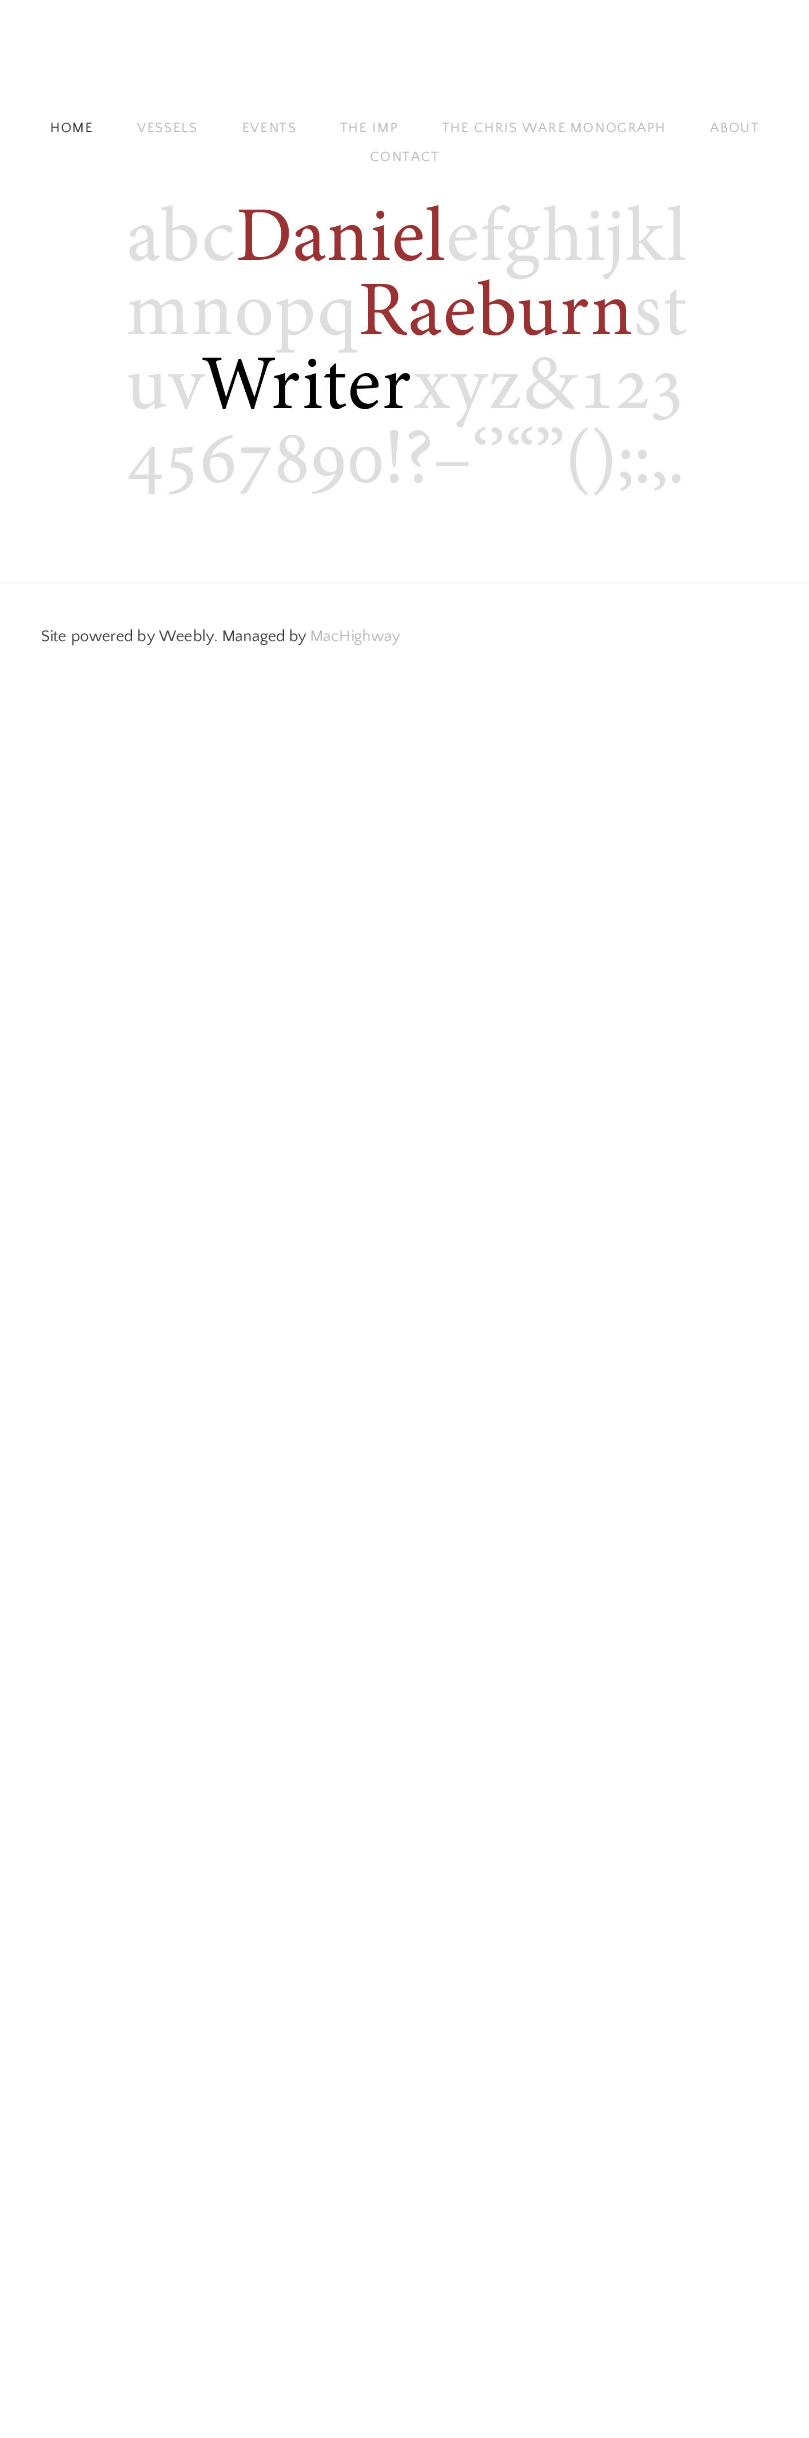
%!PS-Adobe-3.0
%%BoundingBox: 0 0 809 2438
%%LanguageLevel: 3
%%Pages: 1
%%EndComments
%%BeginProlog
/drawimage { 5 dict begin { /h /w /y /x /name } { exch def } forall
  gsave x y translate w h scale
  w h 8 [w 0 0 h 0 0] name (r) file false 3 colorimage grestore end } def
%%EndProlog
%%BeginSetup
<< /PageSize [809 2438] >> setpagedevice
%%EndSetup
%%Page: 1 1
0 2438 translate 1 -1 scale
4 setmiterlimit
1 setgray
0 0 809 2438 rectfill
(images/1.raw) 128 202 559 294 drawimage
0.969 setgray
0 582 809 2 rectfill
/QuattrocentoSans-Regular [14 0 0 -14 0 0] selectfont
0.2 setgray
50 132 moveto 1 0 (HOME) ashow
0.725 setgray
137 132 moveto 1 0 (VESSELS) ashow
242 132 moveto 1 0 (EVENTS) ashow
340 132 moveto 1 0 (THE IMP) ashow
442 132 moveto 1 0 (THE CHRIS WARE MONOGRAPH) ashow
710 132 moveto 1 0 (ABOUT) ashow
370 161 moveto 1 0 (CONTACT) ashow
/QuattrocentoSans-Regular [16 0 0 -16 0 0] selectfont
0.243 setgray
41 641 moveto (Site powered by Weebly. Managed by) show
0.725 setgray
310 641 moveto (MacHighway) show
showpage
%%EOF
